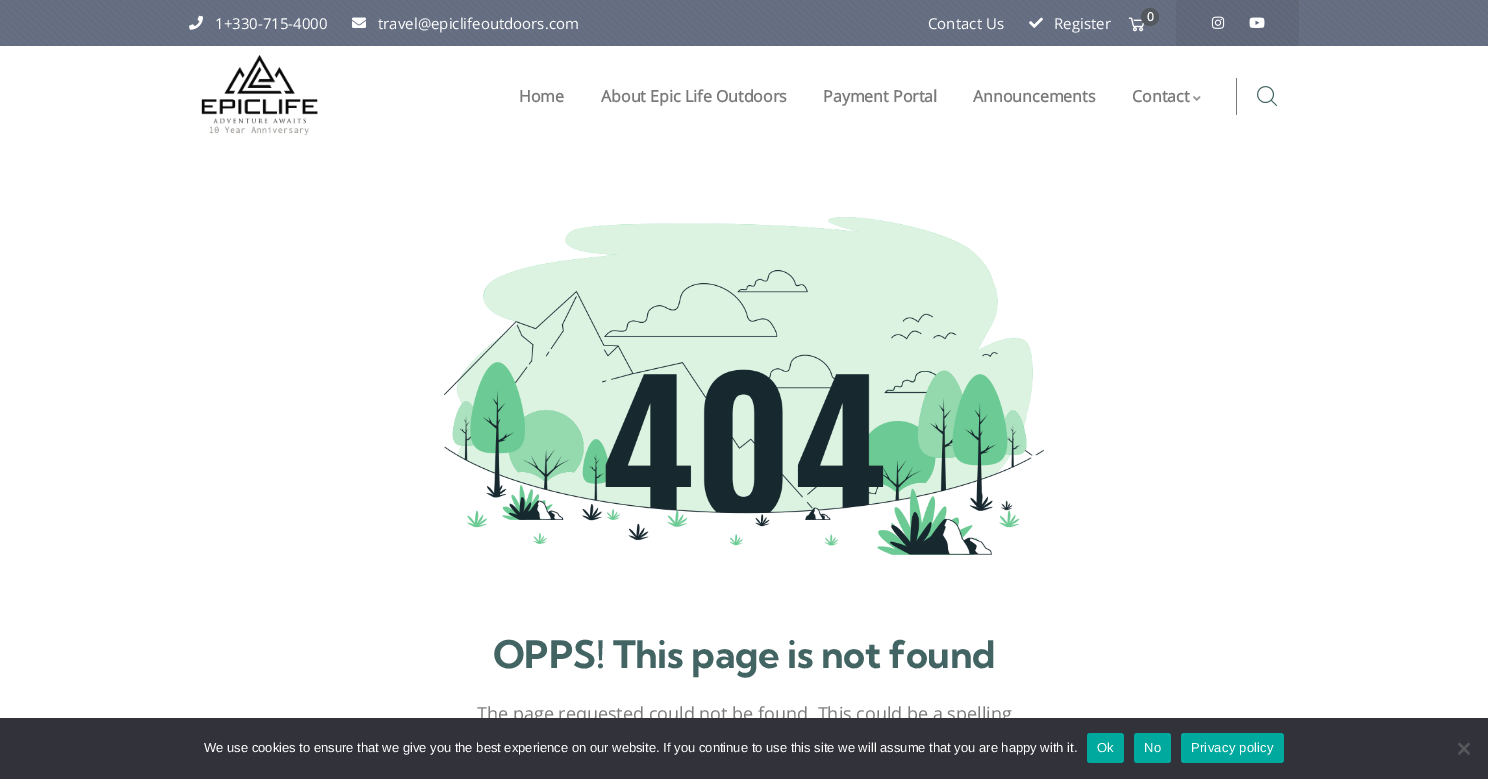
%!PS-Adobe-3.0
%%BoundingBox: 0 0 1488 779
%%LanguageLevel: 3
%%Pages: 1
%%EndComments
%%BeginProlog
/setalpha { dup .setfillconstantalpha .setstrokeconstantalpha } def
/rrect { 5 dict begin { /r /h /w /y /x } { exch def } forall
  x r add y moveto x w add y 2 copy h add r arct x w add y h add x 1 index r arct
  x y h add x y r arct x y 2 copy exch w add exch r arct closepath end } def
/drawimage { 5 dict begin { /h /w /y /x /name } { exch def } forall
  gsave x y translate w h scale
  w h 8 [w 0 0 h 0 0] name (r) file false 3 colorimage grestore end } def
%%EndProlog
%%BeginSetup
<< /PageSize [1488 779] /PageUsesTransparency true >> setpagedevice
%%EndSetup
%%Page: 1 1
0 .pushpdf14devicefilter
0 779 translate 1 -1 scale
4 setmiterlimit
1 setgray
0 0 1488 779 rectfill
0.404 0.439 0.514 setrgbcolor
0 0 1488 46 rectfill
(images/1.raw) 0 0 1488 46 drawimage
(images/2.raw) 189 15 14 15 drawimage
(images/3.raw) 352 17 14 11 drawimage
(images/4.raw) 1128 17 17 15 drawimage
0.329 0.349 0.373 setrgbcolor
newpath 1150 17 9 0 360 arc closepath fill
0.06 setalpha
0 setgray
1176 0 123 46 rectfill
1 setalpha
(images/5.raw) 1211 16 14 13 drawimage
(images/6.raw) 1249 17 16 11 drawimage
(images/7.raw) 1029 17 14 11 drawimage
(images/8.raw) 201 55 117 81 drawimage
(images/9.raw) 1193 96 8 5 drawimage
0.478 setgray
1236 78 1 37 rectfill
(images/10.raw) 1257 86 20 20 drawimage
(images/11.raw) 444 217 600 338 drawimage
/OpenSans-Regular [15 0 0 -15 0 0] selectfont
1 setgray
215 29 moveto (1+330-715-4000) show
378 29 moveto (travel@epiclifeoutdoors.com) show
/OpenSans-Bold [12 0 0 -12 0 0] selectfont
1147 21 moveto (0) show
/OpenSans-Regular [15 0 0 -15 0 0] selectfont
928 29 moveto (Contact Us) show
1054 29 moveto (Register) show
/OpenSans-Bold [16 0 0 -16 0 0] selectfont
0.478 setgray
519 102 moveto (Home) show
601 102 moveto (About Epic Life Outdoors) show
823 102 moveto (Payment Portal) show
973 102 moveto (Announcements) show
1132 102 moveto (Contact) show
/KumbhSans-Bold [38 0 0 -38 0 0] selectfont
0.259 0.392 0.384 setrgbcolor
493 668 moveto -0.4 0 (OPPS! This page is not found) ashow
/OpenSans-Regular [18 0 0 -18 0 0] selectfont
0.478 setgray
477 720 moveto (The page requested could not be found. This could be a spelling) show
0.196 0.196 0.227 setrgbcolor
0 718 1488 61 rectfill
/LiberationSans-Regular [13 0 0 -13 0 0] selectfont
1 setgray
204 752 moveto (We use cookies to ensure that we give you the best experience on our website. If you continue to use this site we will assume that you are happy with it.) show
0 0.663 0.616 setrgbcolor
1087 733 37 30 3 rrect fill
1 setgray
1097 752 moveto 0.25 0 (Ok) ashow
0 0.663 0.616 setrgbcolor
1134 733 37 30 3 rrect fill
1 setgray
1144 752 moveto 0.25 0 (No) ashow
0 0.663 0.616 setrgbcolor
1181 733 103 30 3 rrect fill
1 setgray
1191 752 moveto 0.25 0 (Privacy policy) ashow
0.349 0.349 0.365 setrgbcolor
newpath 1468.5 742.5 moveto 1470 744 lineto 1459.5 755 lineto 1458 753.5 lineto closepath fill
newpath 1458 744 moveto 1459.5 742.5 lineto 1470 753.5 lineto 1468.5 755 lineto closepath fill
.poppdf14devicefilter showpage
%%EOF
